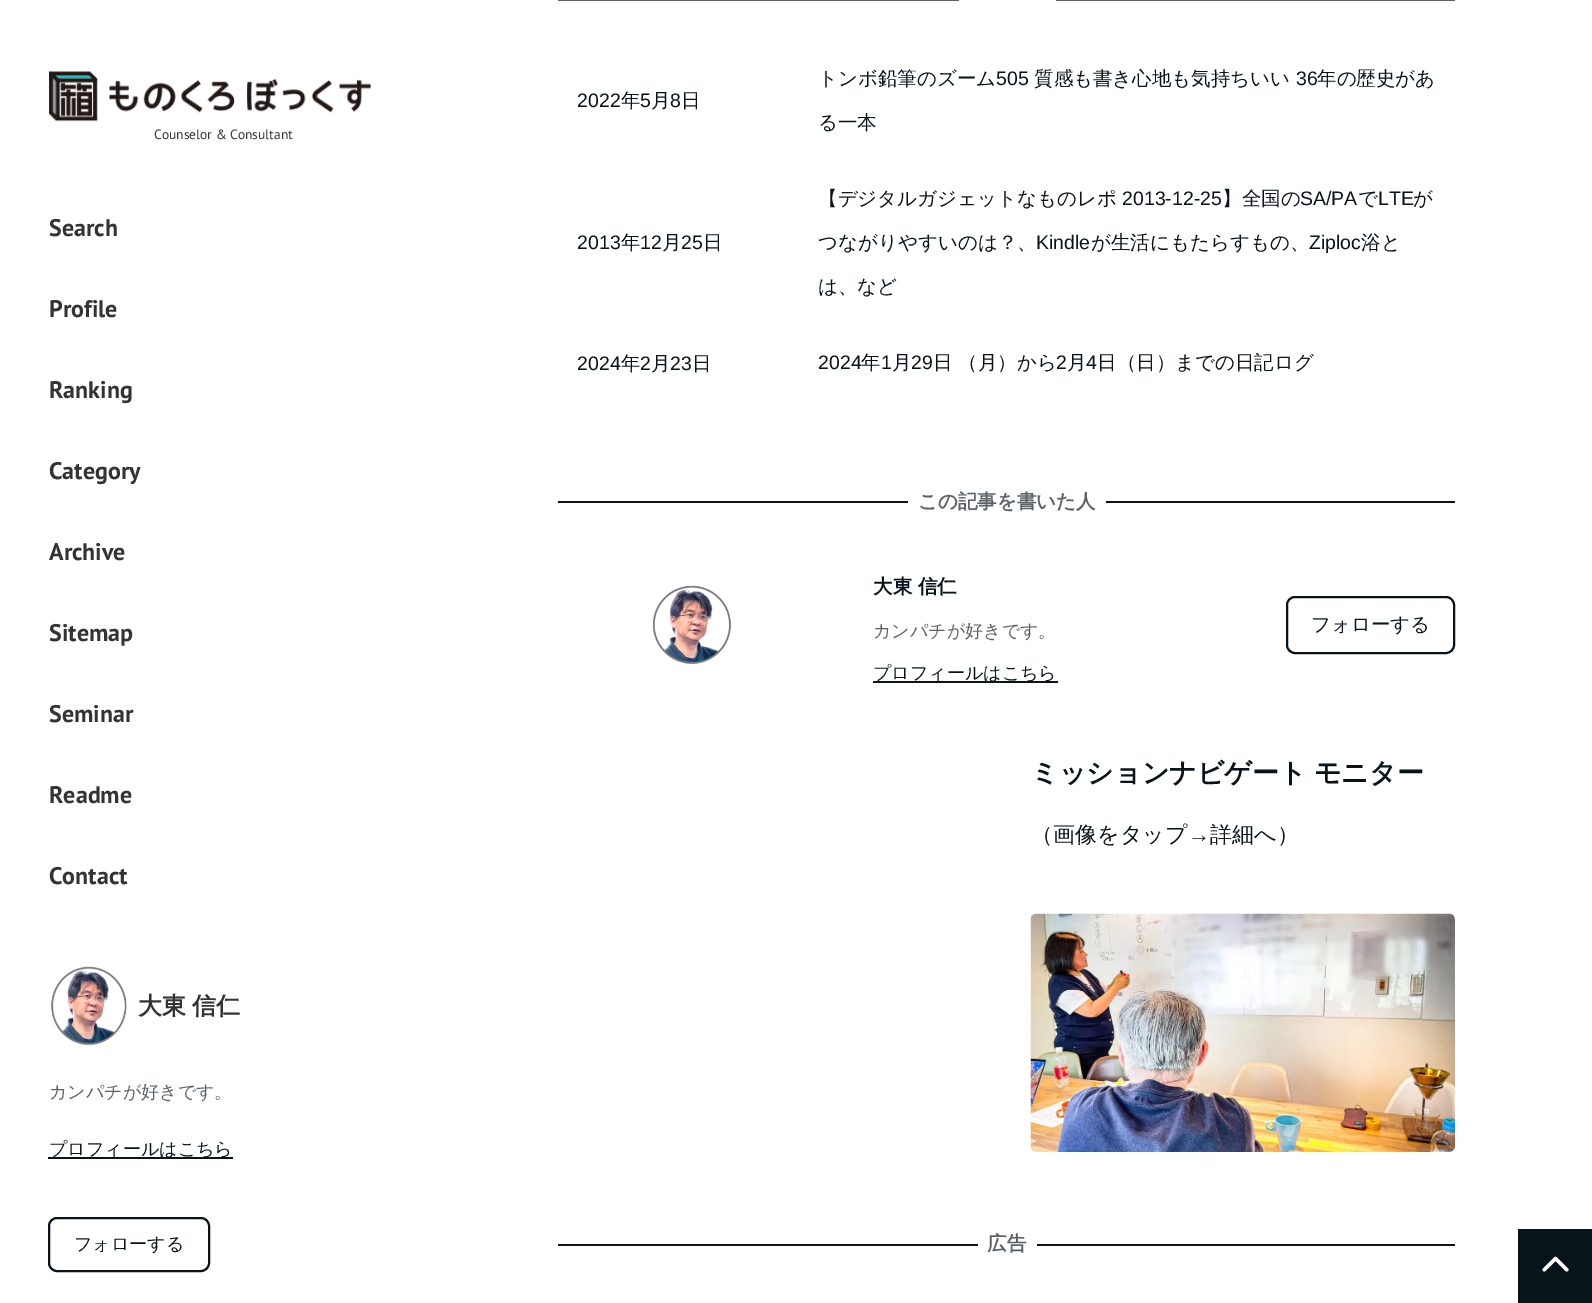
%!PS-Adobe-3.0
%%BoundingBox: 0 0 1592 1303
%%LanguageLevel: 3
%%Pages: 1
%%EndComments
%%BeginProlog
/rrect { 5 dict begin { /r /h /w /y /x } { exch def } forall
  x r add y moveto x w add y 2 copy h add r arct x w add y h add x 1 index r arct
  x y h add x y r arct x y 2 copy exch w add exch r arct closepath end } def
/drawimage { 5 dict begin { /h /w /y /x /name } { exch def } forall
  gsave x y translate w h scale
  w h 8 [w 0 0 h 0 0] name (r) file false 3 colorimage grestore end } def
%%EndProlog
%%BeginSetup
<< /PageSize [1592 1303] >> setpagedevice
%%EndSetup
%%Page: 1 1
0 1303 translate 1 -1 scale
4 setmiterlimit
1 setgray
0 0 1592 1303 rectfill
(images/1.raw) 49 71 323 51 drawimage
(images/2.raw) 51 966 76 80 drawimage
0.031 0.075 0.102 setrgbcolor
48 1157 185 2 rectfill
2 setlinewidth
49 1218 160 53 8 rrect stroke
0.361 0.388 0.408 setrgbcolor
558 0 401 1 rectfill
1056 0 399 1 rectfill
0.067 setgray
558 501 350 2 rectfill
1106 501 349 2 rectfill
(images/3.raw) 652 585 80 79 drawimage
0.031 0.075 0.102 setrgbcolor
873 681 185 2 rectfill
1287 597 167 56 8 rrect stroke
(images/4.raw) 1030 913 425 239 drawimage
0.067 setgray
558 1244 420 2 rectfill
1037 1244 418 2 rectfill
0.031 0.075 0.102 setrgbcolor
1518 1229 74 74 rectfill
(images/5.raw) 1542 1256 27 16 drawimage
/PTSans-Regular [13.5 0 0 -13.5 0 0] selectfont
0.2 setgray
154 139 moveto (Counselor & Consultant) show
/PTSans-Bold [24 0 0 -24 0 0] selectfont
49 236 moveto (Search) show
49 317 moveto (Profile) show
49 398 moveto (Ranking) show
49 479 moveto (Category) show
49 560 moveto (Archive) show
49 641 moveto (Sitemap) show
49 722 moveto (Seminar) show
49 803 moveto (Readme) show
49 884 moveto (Contact) show
/WenQuanYiZenHei-Bold [24 0 0 -24 0 0] selectfont
138 1014 moveto -1 0 32 (大東 信仁) widthshow
/WenQuanYiZenHei-Medium [18 0 0 -18 0 0] selectfont
0.361 0.388 0.408 setrgbcolor
49 1098 moveto (カンパチが好きです。) show
0.031 0.075 0.102 setrgbcolor
49 1155 moveto (プロフィールはこちら) show
74 1250 moveto (フォローする) show
/LiberationSans-Regular [19.5 0 0 -19.5 0 0] selectfont
577 107 moveto (2022) show
/WenQuanYiZenHei-Medium [19.5 0 0 -19.5 0 0] selectfont
621 107 moveto (年) show
/LiberationSans-Regular [19.5 0 0 -19.5 0 0] selectfont
640 107 moveto (5) show
/WenQuanYiZenHei-Medium [19.5 0 0 -19.5 0 0] selectfont
651 107 moveto (月) show
/LiberationSans-Regular [19.5 0 0 -19.5 0 0] selectfont
670 107 moveto (8) show
/WenQuanYiZenHei-Medium [19.5 0 0 -19.5 0 0] selectfont
681 107 moveto (日) show
818 85 moveto (トンボ鉛筆のズーム) show
/LiberationSans-Regular [19.5 0 0 -19.5 0 0] selectfont
996 85 moveto (505) show
/WenQuanYiZenHei-Medium [19.5 0 0 -19.5 0 0] selectfont
1034 85 moveto (質感も書き心地も気持ちいい) show
/LiberationSans-Regular [19.5 0 0 -19.5 0 0] selectfont
1296 85 moveto (36) show
/WenQuanYiZenHei-Medium [19.5 0 0 -19.5 0 0] selectfont
1317 85 moveto (年の歴史があ) show
818 129 moveto (る一本) show
/LiberationSans-Regular [19.5 0 0 -19.5 0 0] selectfont
577 249 moveto (2013) show
/WenQuanYiZenHei-Medium [19.5 0 0 -19.5 0 0] selectfont
621 249 moveto (年) show
/LiberationSans-Regular [19.5 0 0 -19.5 0 0] selectfont
640 249 moveto (12) show
/WenQuanYiZenHei-Medium [19.5 0 0 -19.5 0 0] selectfont
662 249 moveto (月) show
/LiberationSans-Regular [19.5 0 0 -19.5 0 0] selectfont
681 249 moveto (25) show
/WenQuanYiZenHei-Medium [19.5 0 0 -19.5 0 0] selectfont
703 249 moveto (日) show
818 205 moveto (【デジタルガジェットなものレポ) show
/LiberationSans-Regular [19.5 0 0 -19.5 0 0] selectfont
1122 205 moveto (2013-12-25) show
/WenQuanYiZenHei-Medium [19.5 0 0 -19.5 0 0] selectfont
1222 205 moveto (】全国の) show
/LiberationSans-Regular [19.5 0 0 -19.5 0 0] selectfont
1300 205 moveto (SA/PA) show
/WenQuanYiZenHei-Medium [19.5 0 0 -19.5 0 0] selectfont
1358 205 moveto (で) show
/LiberationSans-Regular [19.5 0 0 -19.5 0 0] selectfont
1378 205 moveto (LTE) show
/WenQuanYiZenHei-Medium [19.5 0 0 -19.5 0 0] selectfont
1413 205 moveto (が) show
818 249 moveto (つながりやすいのは？、) show
/LiberationSans-Regular [19.5 0 0 -19.5 0 0] selectfont
1036 249 moveto (Kindle) show
/WenQuanYiZenHei-Medium [19.5 0 0 -19.5 0 0] selectfont
1091 249 moveto (が生活にもたらすもの、) show
/LiberationSans-Regular [19.5 0 0 -19.5 0 0] selectfont
1309 249 moveto (Ziploc) show
/WenQuanYiZenHei-Medium [19.5 0 0 -19.5 0 0] selectfont
1361 249 moveto (浴と) show
818 293 moveto (は、など) show
/LiberationSans-Regular [19.5 0 0 -19.5 0 0] selectfont
577 370 moveto (2024) show
/WenQuanYiZenHei-Medium [19.5 0 0 -19.5 0 0] selectfont
621 370 moveto (年) show
/LiberationSans-Regular [19.5 0 0 -19.5 0 0] selectfont
640 370 moveto (2) show
/WenQuanYiZenHei-Medium [19.5 0 0 -19.5 0 0] selectfont
651 370 moveto (月) show
/LiberationSans-Regular [19.5 0 0 -19.5 0 0] selectfont
670 370 moveto (23) show
/WenQuanYiZenHei-Medium [19.5 0 0 -19.5 0 0] selectfont
692 370 moveto (日) show
/LiberationSans-Regular [19.5 0 0 -19.5 0 0] selectfont
818 369 moveto (2024) show
/WenQuanYiZenHei-Medium [19.5 0 0 -19.5 0 0] selectfont
861 369 moveto (年) show
/LiberationSans-Regular [19.5 0 0 -19.5 0 0] selectfont
881 369 moveto (1) show
/WenQuanYiZenHei-Medium [19.5 0 0 -19.5 0 0] selectfont
892 369 moveto (月) show
/LiberationSans-Regular [19.5 0 0 -19.5 0 0] selectfont
911 369 moveto (29) show
/WenQuanYiZenHei-Medium [19.5 0 0 -19.5 0 0] selectfont
933 369 moveto (日 （月）から) show
/LiberationSans-Regular [19.5 0 0 -19.5 0 0] selectfont
1056 369 moveto (2) show
/WenQuanYiZenHei-Medium [19.5 0 0 -19.5 0 0] selectfont
1067 369 moveto (月) show
/LiberationSans-Regular [19.5 0 0 -19.5 0 0] selectfont
1086 369 moveto (4) show
/WenQuanYiZenHei-Medium [19.5 0 0 -19.5 0 0] selectfont
1097 369 moveto (日（日）までの日記ログ) show
/WenQuanYiZenHei-Bold [19.5 0 0 -19.5 0 0] selectfont
0.361 0.388 0.408 setrgbcolor
918 508 moveto (この記事を書いた人) show
0.031 0.075 0.102 setrgbcolor
873 593 moveto (大東 信仁) show
/WenQuanYiZenHei-Medium [18 0 0 -18 0 0] selectfont
0.361 0.388 0.408 setrgbcolor
873 637 moveto (カンパチが好きです。) show
0.031 0.075 0.102 setrgbcolor
873 679 moveto (プロフィールはこちら) show
/WenQuanYiZenHei-Medium [19.5 0 0 -19.5 0 0] selectfont
1311 631 moveto (フォローする) show
/WenQuanYiZenHei-Bold [27 0 0 -27 0 0] selectfont
1031 782 moveto -1 0 32 (ミッションナビゲート モニター) widthshow
/WenQuanYiZenHei-Medium [22 0 0 -22 0 0] selectfont
1031 842 moveto (（画像をタップ) show
/LiberationSans-Regular [22 0 0 -22 0 0] selectfont
1188 842 moveto (→) show
/WenQuanYiZenHei-Medium [22 0 0 -22 0 0] selectfont
1210 842 moveto (詳細へ）) show
/WenQuanYiZenHei-Bold [19.5 0 0 -19.5 0 0] selectfont
0.361 0.388 0.408 setrgbcolor
987 1250 moveto (広告) show
showpage
%%EOF
